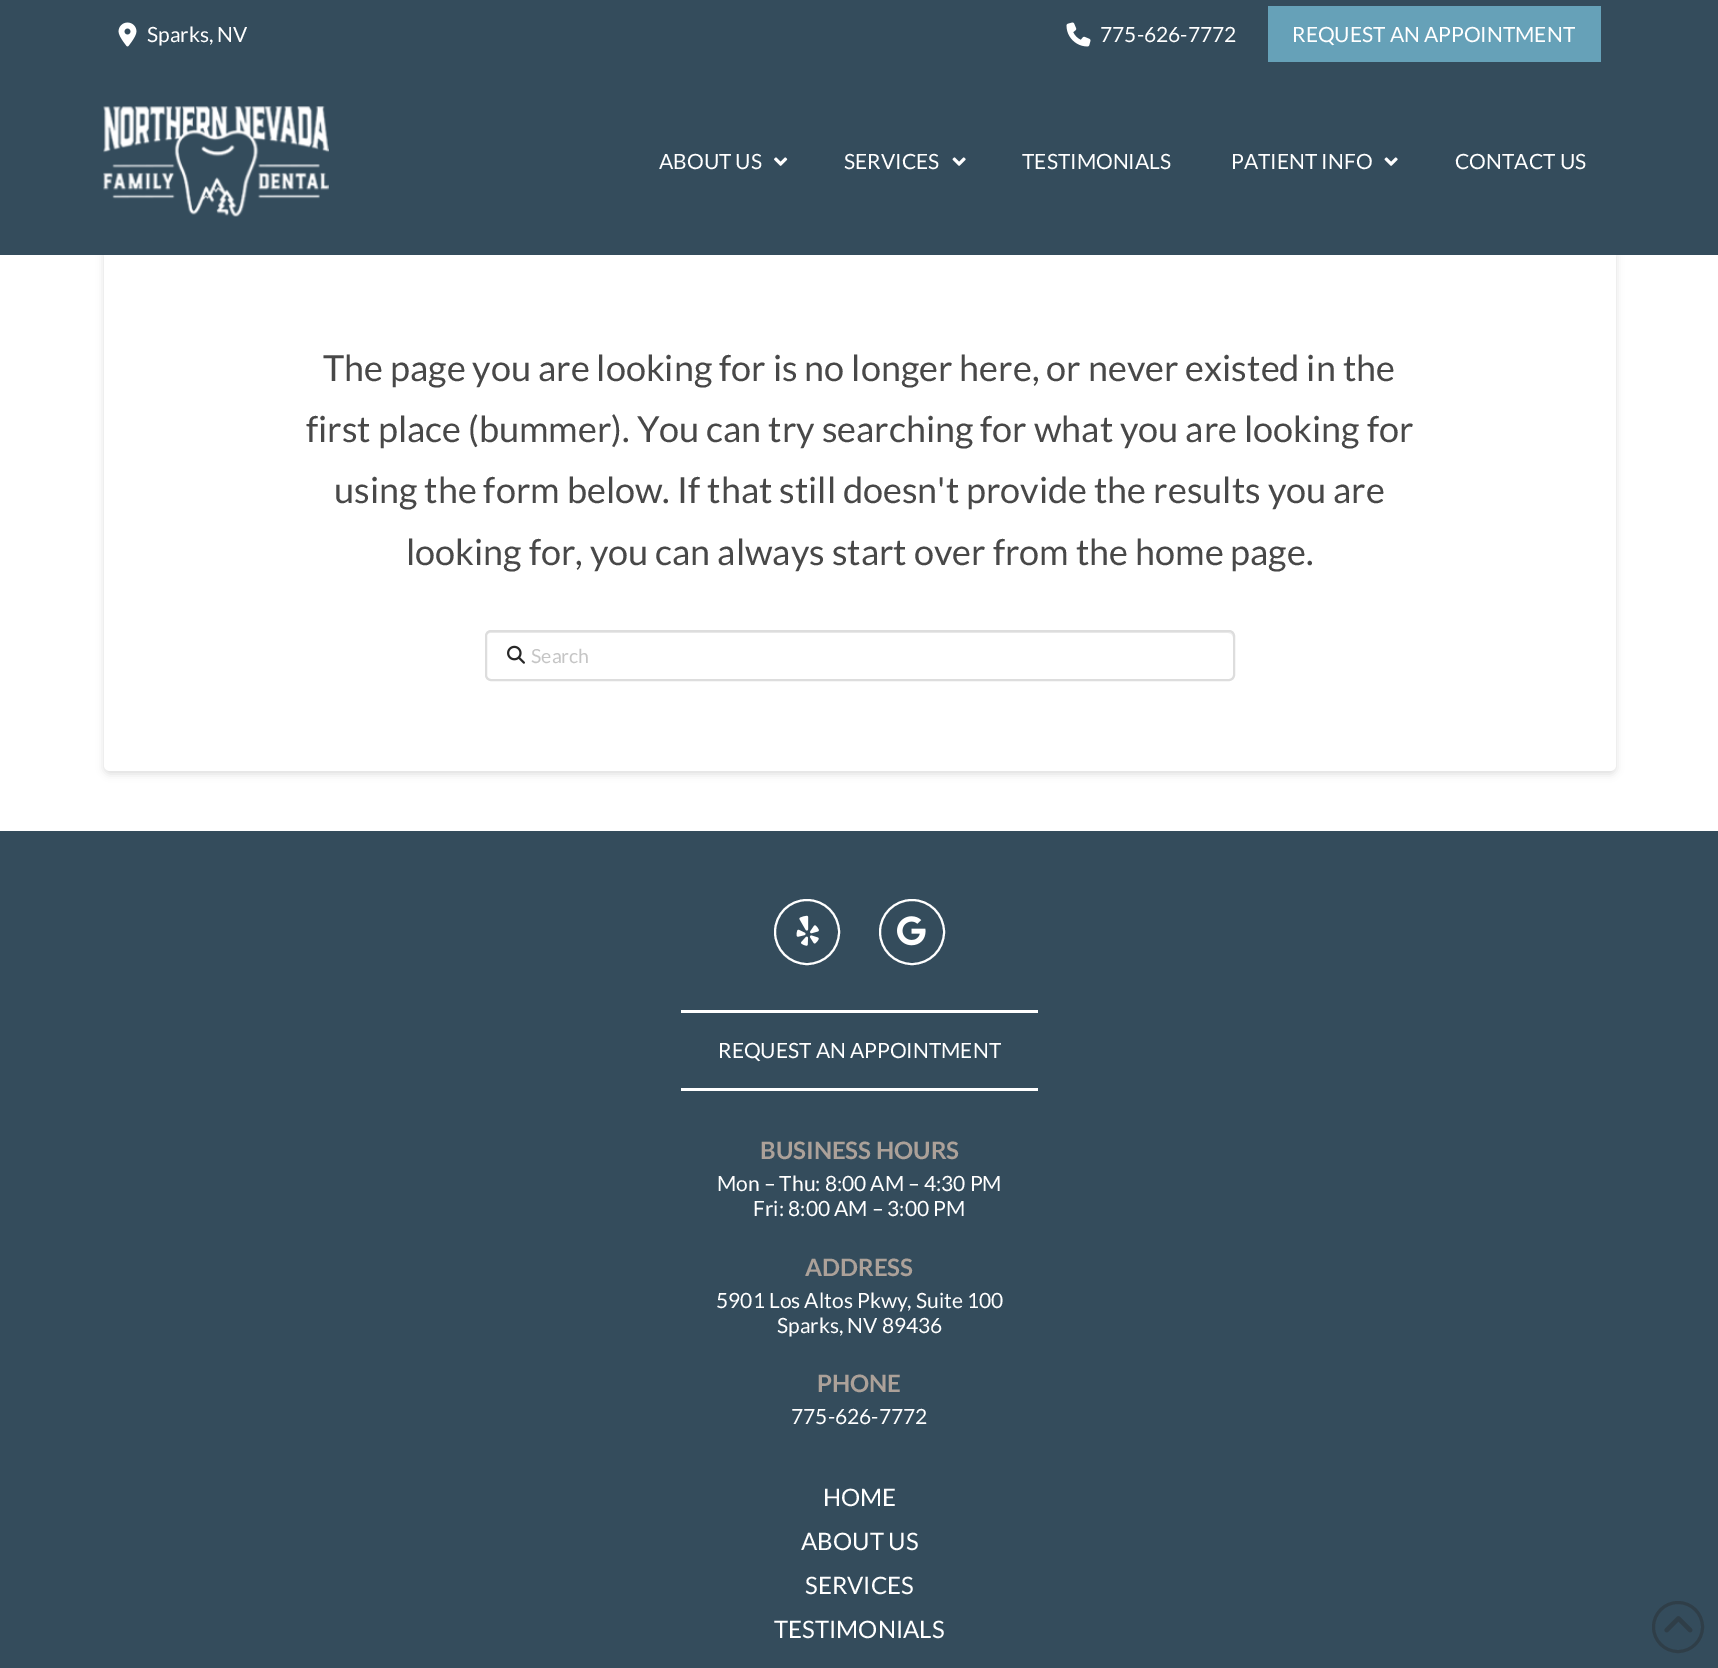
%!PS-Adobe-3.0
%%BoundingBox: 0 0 1718 1668
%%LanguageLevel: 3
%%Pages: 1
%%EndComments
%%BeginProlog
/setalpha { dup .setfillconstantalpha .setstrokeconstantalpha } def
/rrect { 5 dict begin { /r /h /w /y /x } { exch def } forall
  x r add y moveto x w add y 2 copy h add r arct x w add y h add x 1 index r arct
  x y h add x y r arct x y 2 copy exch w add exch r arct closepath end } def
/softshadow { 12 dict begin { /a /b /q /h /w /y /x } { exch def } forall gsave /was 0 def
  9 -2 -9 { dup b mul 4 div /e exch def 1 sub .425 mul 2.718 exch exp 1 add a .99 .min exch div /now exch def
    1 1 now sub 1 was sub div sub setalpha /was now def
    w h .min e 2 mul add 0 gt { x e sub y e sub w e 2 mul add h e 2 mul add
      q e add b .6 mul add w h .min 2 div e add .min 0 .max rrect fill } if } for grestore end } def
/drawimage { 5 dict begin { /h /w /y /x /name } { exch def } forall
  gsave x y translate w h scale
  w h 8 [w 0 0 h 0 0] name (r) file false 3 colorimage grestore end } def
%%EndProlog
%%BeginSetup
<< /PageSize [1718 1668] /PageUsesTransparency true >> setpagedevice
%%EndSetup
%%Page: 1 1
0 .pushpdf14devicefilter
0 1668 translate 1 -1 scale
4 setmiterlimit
1 setgray
0 0 1718 1668 rectfill
0 setgray
104 251 1512 523 6 4 0.13 softshadow
1 setgray
104 248 1512 523 6 rrect fill
0.204 0.298 0.361 setrgbcolor
0 0 1718 255 rectfill
(images/1.raw) 118 22 19 25 drawimage
(images/2.raw) 1066 22 25 25 drawimage
0.4 0.631 0.722 setrgbcolor
1268 6 333 56 rectfill
(images/3.raw) 103 106 226 111 drawimage
(images/4.raw) 774 157 14 9 drawimage
(images/5.raw) 952 157 14 9 drawimage
(images/5.raw) 1384 157 14 9 drawimage
0.925 setgray
newpath 490 633 moveto 1228 633 lineto 1231 633 1233 635 1233 638 curveto 1233 637 lineto 1233 634 1231 632 1228 632 curveto 491 632 lineto 488 632 486 634 486 637 curveto 486 638 lineto 486 635 488 633 490 633 curveto closepath fill
0.867 setgray
2 setlinewidth
486 631 748 49 5 rrect stroke
(images/6.raw) 507 645 18 19 drawimage
0.204 0.298 0.361 setrgbcolor
0 831 1718 837 rectfill
1 setgray
newpath 807 932 32 0 360 arc closepath stroke
(images/7.raw) 796 915 23 31 drawimage
newpath 912 932 32 0 360 arc closepath stroke
(images/8.raw) 897 916 29 30 drawimage
681 1010 357 3 rectfill
681 1088 357 3 rectfill
0.184 0.243 0.282 setrgbcolor
3 setlinewidth
newpath 1678 1627 24.5 0 360 arc closepath stroke
(images/9.raw) 1664 1616 29 17 drawimage
/Lato-Regular [21 0 0 -21 0 0] selectfont
1 setgray
147 42 moveto (Sparks, NV) show
1100 42 moveto (775-626-7772) show
1292 42 moveto (REQUEST AN APPOINTMENT) show
659 169 moveto (ABOUT US) show
844 169 moveto (SERVICES) show
1022 169 moveto (TESTIMONIALS) show
1231 169 moveto (PATIENT INFO) show
1455 169 moveto (CONTACT US) show
/Lato-Regular [36 0 0 -36 0 0] selectfont
0.282 setgray
323 381 moveto (The page you are looking for is no longer here, or never existed in the) show
306 442 moveto (first place \(bummer\). You can try searching for what you are looking for) show
334 503 moveto (using the form below. If that still doesn't provide the results you are) show
406 565 moveto (looking for, you can always start over from the home page.) show
/Lato-Regular [19.5 0 0 -19.5 0 0] selectfont
0.773 setgray
531 663 moveto (Search) show
/Lato-Regular [21 0 0 -21 0 0] selectfont
1 setgray
718 1058 moveto (REQUEST AN APPOINTMENT) show
/Lato-Bold [24 0 0 -24 0 0] selectfont
0.675 0.631 0.6 setrgbcolor
760 1159 moveto (BUSINESS HOURS) show
/Lato-Regular [21 0 0 -21 0 0] selectfont
1 setgray
717 1191 moveto (Mon – Thu: 8:00 AM – 4:30 PM) show
753 1216 moveto (Fri: 8:00 AM – 3:00 PM) show
/Lato-Bold [24 0 0 -24 0 0] selectfont
0.675 0.631 0.6 setrgbcolor
805 1276 moveto (ADDRESS) show
/Lato-Regular [21 0 0 -21 0 0] selectfont
1 setgray
716 1308 moveto (5901 Los Altos Pkwy, Suite 100) show
777 1333 moveto (Sparks, NV 89436) show
/Lato-Bold [24 0 0 -24 0 0] selectfont
0.675 0.631 0.6 setrgbcolor
817 1392 moveto (PHONE) show
/Lato-Regular [21 0 0 -21 0 0] selectfont
1 setgray
791 1424 moveto (775-626-7772) show
/Lato-Regular [24 0 0 -24 0 0] selectfont
823 1506 moveto (HOME) show
801 1550 moveto (ABOUT US) show
805 1594 moveto (SERVICES) show
774 1638 moveto (TESTIMONIALS) show
.poppdf14devicefilter showpage
%%EOF
